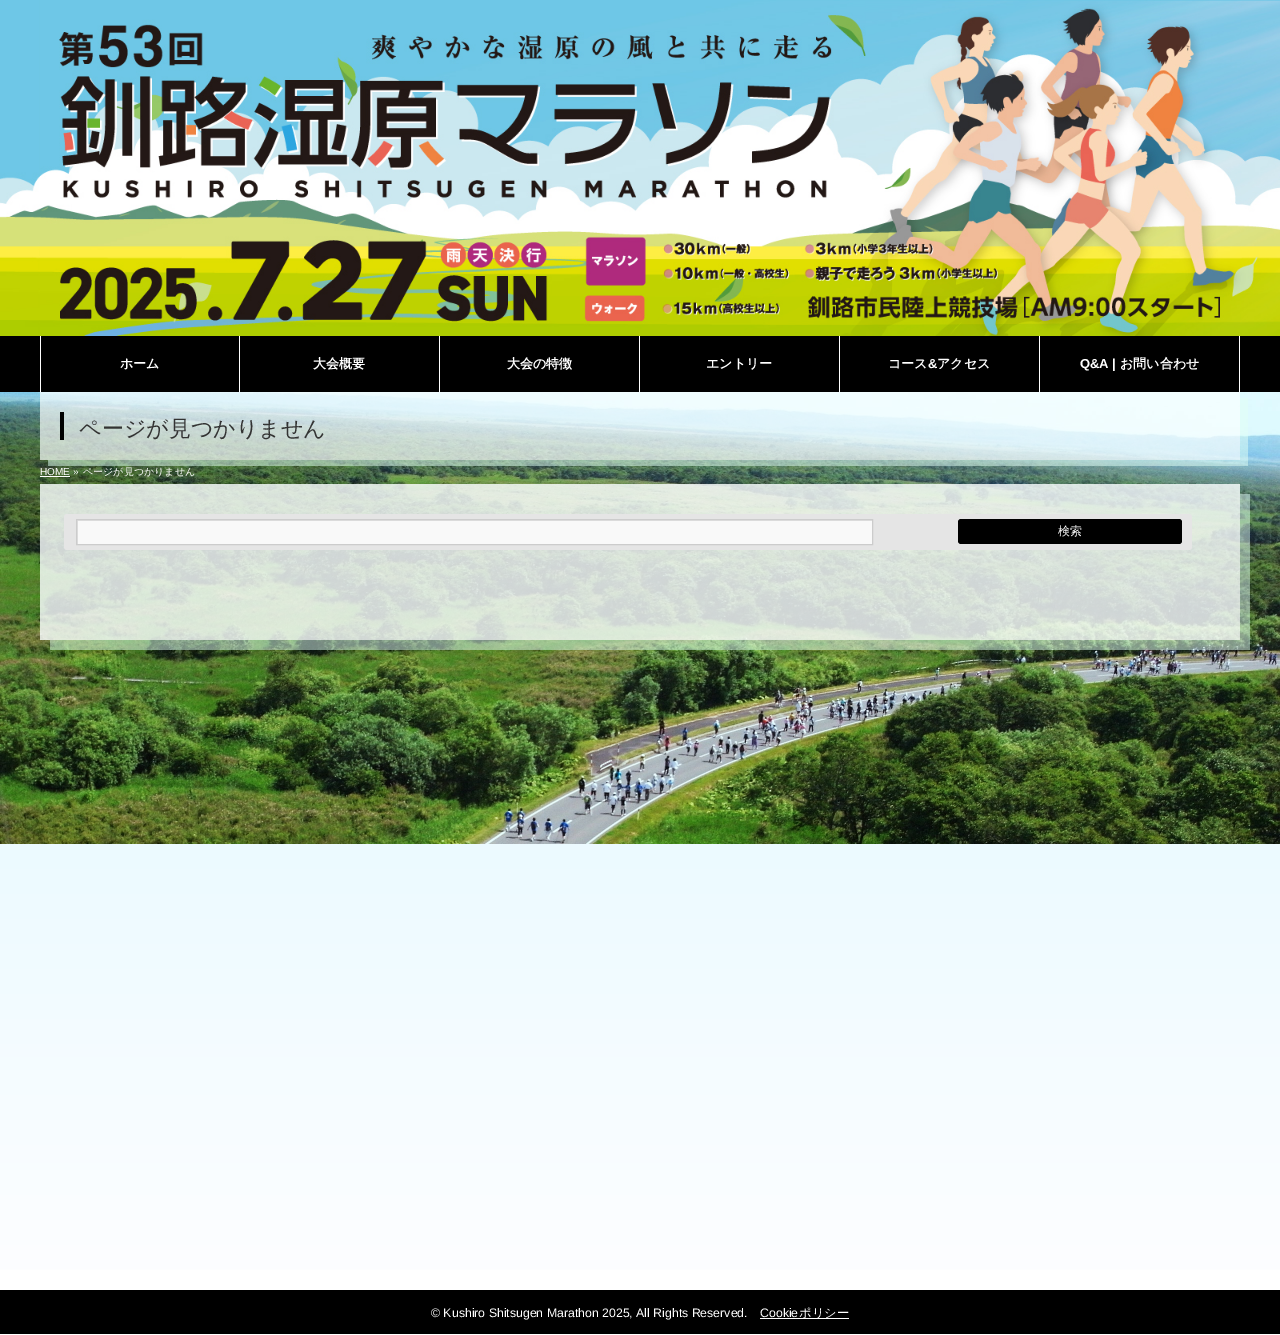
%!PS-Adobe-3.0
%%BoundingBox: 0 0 1280 1335
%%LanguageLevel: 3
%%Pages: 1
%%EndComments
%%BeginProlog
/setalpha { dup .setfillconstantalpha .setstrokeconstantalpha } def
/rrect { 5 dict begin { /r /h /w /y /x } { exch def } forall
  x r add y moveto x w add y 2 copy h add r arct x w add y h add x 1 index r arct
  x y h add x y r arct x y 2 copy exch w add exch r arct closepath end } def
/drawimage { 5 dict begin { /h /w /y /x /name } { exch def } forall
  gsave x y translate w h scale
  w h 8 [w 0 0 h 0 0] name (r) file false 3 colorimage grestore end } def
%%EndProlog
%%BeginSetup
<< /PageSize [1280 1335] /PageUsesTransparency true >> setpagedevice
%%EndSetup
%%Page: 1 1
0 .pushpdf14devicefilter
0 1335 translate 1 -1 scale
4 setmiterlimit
1 setgray
0 0 1280 1335 rectfill
gsave newpath 0 844 moveto 1280 844 lineto 1280 1270 lineto 0 1270 lineto closepath clip newpath
<< /ShadingType 2 /ColorSpace /DeviceRGB /Coords [640 0 640 1335] /Extend [true true] /Function << /FunctionType 2 /Domain [0 1] /C0 [0.8 0.949 1] /C1 [1 1 1] /N 1 >> >> shfill grestore
(images/1.raw) 0 392 1280 452 drawimage
(images/2.raw) 0 0 1280 336 drawimage
(images/3.raw) 40 0 1200 336 drawimage
0 setgray
0 336 1280 56 rectfill
1 setgray
239 336 1 56 rectfill
40 336 1 56 rectfill
439 336 1 56 rectfill
639 336 1 56 rectfill
839 336 1 56 rectfill
1039 336 1 56 rectfill
1239 336 1 56 rectfill
0.5 setalpha
0.882 1 0.961 setrgbcolor
newpath 48 460 moveto 48 466 lineto 1248 466 lineto 1248 398 lineto 1240 398 lineto 1240 460 lineto closepath fill
0.7 setalpha
0.98 1 1 setrgbcolor
40 392 1200 68 rectfill
1 setalpha
0 setgray
60 412 4 28 rectfill
1 setgray
40 476 30 1 rectfill
0.5 setalpha
0.882 1 0.961 setrgbcolor
newpath 50 640 moveto 50 650 lineto 1250 650 lineto 1250 494 lineto 1240 494 lineto 1240 640 lineto closepath fill
0.82 setalpha
0.98 1 1 setrgbcolor
40 484 1200 156 rectfill
1 setalpha
0.898 setgray
64 514 1128 36 3 rrect fill
0.976 setgray
78 521 794 23 rectfill
gsave
77 520 795 24 rectclip
0.878 setgray
newpath 67 514 moveto 971 514 lineto 971 550 lineto 67 550 lineto 65 550 64 549 64 547 curveto 64 517 lineto 64 515 65 514 67 514 curveto closepath 78 521 moveto 78 545 lineto 873 545 lineto 873 521 lineto closepath eofill
grestore
0.8 setgray
76.5 519.5 796 25 rectstroke
0 setgray
958 519 224 25 3 rrect fill
0 1290 1280 44 rectfill
1 setgray
760 1318 89 1 rectfill
/WenQuanYiZenHei-Bold [13 0 0 -13 0 0] selectfont
120 368 moveto (ホーム) show
313 368 moveto (大会概要) show
507 368 moveto (大会の特徴) show
706 368 moveto (エントリー) show
888 368 moveto (コース) show
/LiberationSans-Bold [13 0 0 -13 0 0] selectfont
928 368 moveto (&) show
/WenQuanYiZenHei-Bold [13 0 0 -13 0 0] selectfont
937 368 moveto (アクセス) show
/LiberationSans-Bold [13 0 0 -13 0 0] selectfont
1080 368 moveto (Q&A |) show
/WenQuanYiZenHei-Bold [13 0 0 -13 0 0] selectfont
1120 368 moveto (お問い合わせ) show
/WenQuanYiZenHei-Medium [22 0 0 -22 0 0] selectfont
0.2 setgray
79 436 moveto (ページが見つかりません) show
/LiberationSans-Regular [10 0 0 -10 0 0] selectfont
1 setgray
40 475 moveto (HOME ») show
/WenQuanYiZenHei-Medium [10 0 0 -10 0 0] selectfont
83 475 moveto (ページが見つかりません) show
/WenQuanYiZenHei-Medium [12 0 0 -12 0 0] selectfont
1058 535 moveto (検索) show
/LiberationSans-Regular [12.3 0 0 -12.3 0 0] selectfont
431 1317 moveto (© Kushiro Shitsugen Marathon 2025, All Rights Reserved.) show
760 1317 moveto (Cookie) show
/WenQuanYiZenHei-Medium [12.3 0 0 -12.3 0 0] selectfont
799 1317 moveto (ポリシー) show
.poppdf14devicefilter showpage
%%EOF
